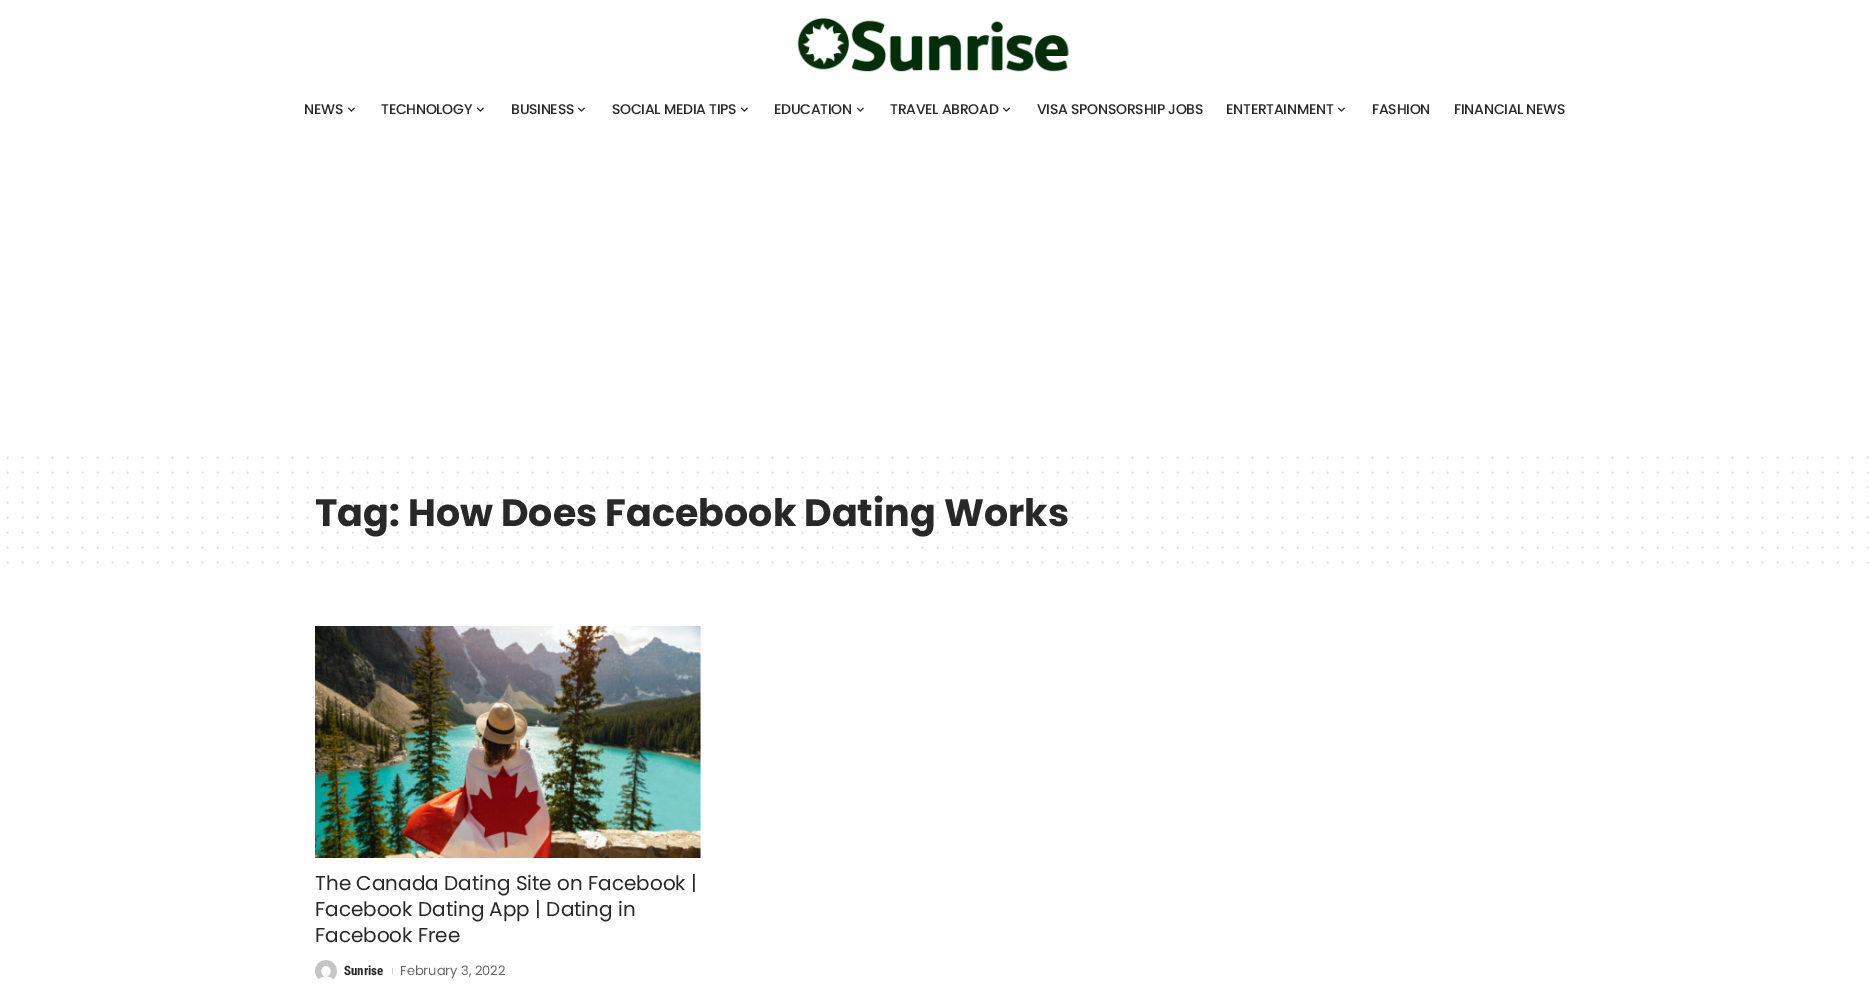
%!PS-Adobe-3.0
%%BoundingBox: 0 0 1869 990
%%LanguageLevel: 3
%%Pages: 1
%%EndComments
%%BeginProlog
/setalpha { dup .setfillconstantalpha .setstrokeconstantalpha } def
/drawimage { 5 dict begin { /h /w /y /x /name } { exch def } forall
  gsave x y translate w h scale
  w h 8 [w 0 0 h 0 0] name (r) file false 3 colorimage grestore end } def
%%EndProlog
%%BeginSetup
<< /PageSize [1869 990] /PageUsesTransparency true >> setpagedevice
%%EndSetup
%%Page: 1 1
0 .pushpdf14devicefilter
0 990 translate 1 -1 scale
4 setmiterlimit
1 setgray
0 0 1869 990 rectfill
(images/1.raw) 797 17 272 55 drawimage
(images/2.raw) 347 107 8 5 drawimage
(images/2.raw) 476 107 8 5 drawimage
(images/2.raw) 577 107 8 5 drawimage
(images/2.raw) 740 107 8 5 drawimage
(images/2.raw) 856 107 8 5 drawimage
(images/2.raw) 1002 107 8 5 drawimage
(images/2.raw) 1337 107 8 5 drawimage
0.875 setgray
2 setlinewidth
1 setlinecap
[0 15] 0 setdash
newpath 7.5 457.5 moveto 1867.7 457.5 lineto stroke
newpath 7.5 472.5 moveto 1867.7 472.5 lineto stroke
newpath 7.5 487.5 moveto 1867.7 487.5 lineto stroke
newpath 7.5 547.5 moveto 1867.7 547.5 lineto stroke
newpath 7.5 562.5 moveto 1867.7 562.5 lineto stroke
(images/3.raw) 315 626 386 232 drawimage
(images/4.raw) 315 960 22 20 drawimage
0.82 setgray
392 968 1 6 rectfill
/Poppins-Medium [14 0 0 -14 0 0] selectfont
0.157 setgray
304 114 moveto -0.25 0 (NEWS) ashow
381 114 moveto -0.25 0 (TECHNOLOGY) ashow
511 114 moveto -0.25 0 (BUSINESS) ashow
612 114 moveto -0.25 0 (SOCIAL MEDIA TIPS) ashow
774 114 moveto -0.25 0 (EDUCATION) ashow
890 114 moveto -0.25 0 (TRAVEL ABROAD) ashow
1037 114 moveto -0.25 0 (VISA SPONSORSHIP JOBS) ashow
1226 114 moveto -0.25 0 (ENTERTAINMENT) ashow
1372 114 moveto -0.25 0 (FASHION) ashow
1454 114 moveto -0.25 0 (FINANCIAL NEWS) ashow
/Poppins-Bold [38 0 0 -38 0 0] selectfont
315 526 moveto (Tag: How Does Facebook Dating Works) show
0.15 setalpha
newpath 7.5 532.5 moveto 1867.7 532.5 lineto stroke
newpath 7.5 517.5 moveto 1867.7 517.5 lineto stroke
newpath 7.5 502.5 moveto 1867.7 502.5 lineto stroke
/Poppins-Regular [20 0 0 -20 0 0] selectfont
1 setalpha
315 890 moveto (The Canada Dating Site on Facebook |) show
315 916 moveto (Facebook Dating App | Dating in) show
315 942 moveto (Facebook Free) show
/RobotoCondensed-Bold [13 0 0 -13 0 0] selectfont
344 975 moveto (Sunrise) show
/Poppins-Regular [13 0 0 -13 0 0] selectfont
0.4 setgray
400 975 moveto (February 3, 2022) show
.poppdf14devicefilter showpage
%%EOF
